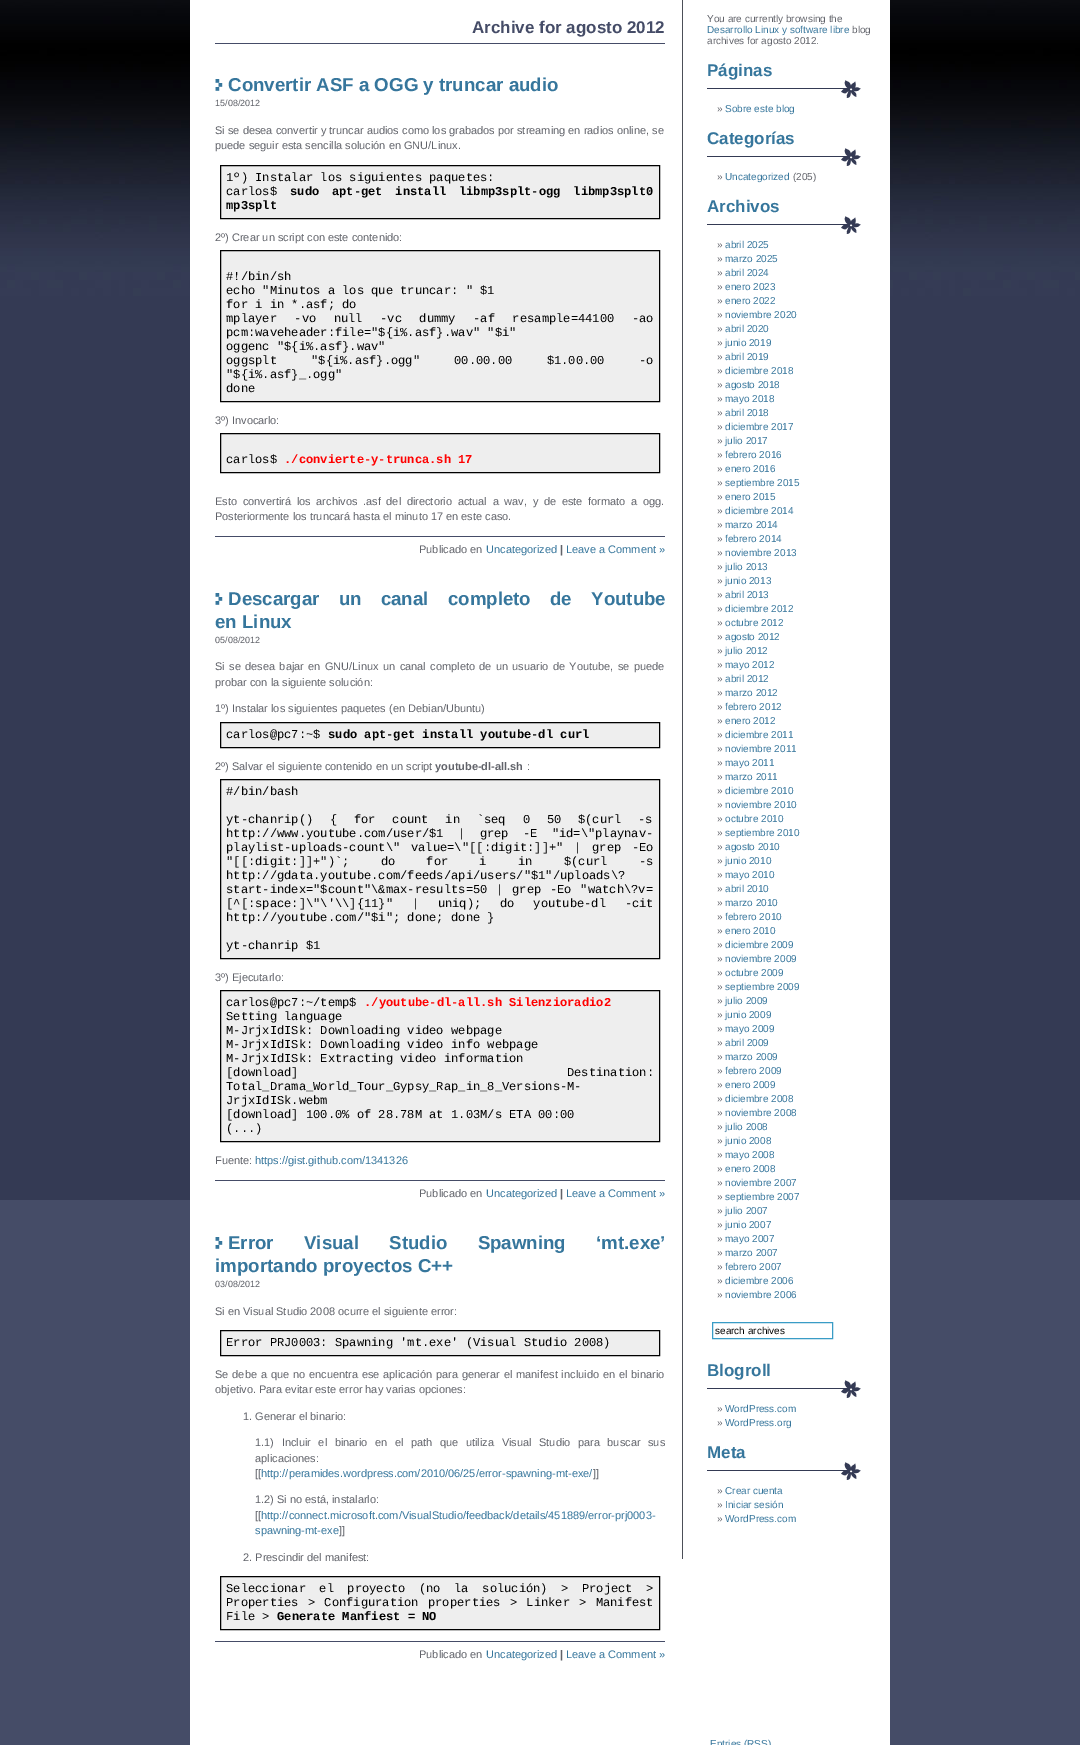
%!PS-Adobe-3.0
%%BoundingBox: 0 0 1080 1745
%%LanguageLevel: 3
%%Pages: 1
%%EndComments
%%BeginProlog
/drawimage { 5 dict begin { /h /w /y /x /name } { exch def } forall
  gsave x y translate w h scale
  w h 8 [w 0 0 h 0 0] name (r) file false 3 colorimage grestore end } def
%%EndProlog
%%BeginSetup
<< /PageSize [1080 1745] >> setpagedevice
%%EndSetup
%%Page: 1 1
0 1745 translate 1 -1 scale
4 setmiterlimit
0.271 0.298 0.404 setrgbcolor
0 0 1080 1745 rectfill
(images/1.raw) 0 0 1080 1200 drawimage
1 setgray
190 0 700 1745 rectfill
0.271 0.298 0.404 setrgbcolor
215 43 450 1 rectfill
(images/2.raw) 215 79 8 12 drawimage
0.933 setgray
newpath 220.5 165.5 moveto 659.5 165.5 lineto 659.5 218.5 lineto 220.5 218.5 lineto closepath gsave fill grestore
0 setgray
stroke
0.933 setgray
newpath 220.5 250.5 moveto 659.5 250.5 lineto 659.5 401.5 lineto 220.5 401.5 lineto closepath gsave fill grestore
0 setgray
stroke
0.933 setgray
newpath 220.5 433.5 moveto 659.5 433.5 lineto 659.5 472.5 lineto 220.5 472.5 lineto closepath gsave fill grestore
0 setgray
stroke
0.271 0.298 0.404 setrgbcolor
215 536 450 1 rectfill
(images/2.raw) 215 593 8 12 drawimage
0.933 setgray
newpath 220.5 722.5 moveto 659.5 722.5 lineto 659.5 747.5 lineto 220.5 747.5 lineto closepath gsave fill grestore
0 setgray
stroke
0.933 setgray
newpath 220.5 779.5 moveto 659.5 779.5 lineto 659.5 958.5 lineto 220.5 958.5 lineto closepath gsave fill grestore
0 setgray
stroke
0.933 setgray
newpath 220.5 990.5 moveto 659.5 990.5 lineto 659.5 1141.5 lineto 220.5 1141.5 lineto closepath gsave fill grestore
0 setgray
stroke
0.271 0.298 0.404 setrgbcolor
215 1180 450 1 rectfill
(images/2.raw) 215 1237 8 12 drawimage
0.933 setgray
newpath 220.5 1330.5 moveto 659.5 1330.5 lineto 659.5 1355.5 lineto 220.5 1355.5 lineto closepath gsave fill grestore
0 setgray
stroke
0.933 setgray
newpath 220.5 1576.5 moveto 659.5 1576.5 lineto 659.5 1629.5 lineto 220.5 1629.5 lineto closepath gsave fill grestore
0 setgray
stroke
0.271 0.298 0.404 setrgbcolor
215 1641 450 1 rectfill
0.298 0.31 0.345 setrgbcolor
682 0 1 1559 rectfill
(images/3.raw) 707 80 154 18 drawimage
(images/3.raw) 707 148 154 18 drawimage
(images/3.raw) 707 216 154 18 drawimage
0.224 0.612 0.776 setrgbcolor
712.5 1322.5 120 16 rectstroke
(images/3.raw) 707 1380 154 18 drawimage
(images/3.raw) 707 1462 154 18 drawimage
/LiberationSans-Bold [17 0 0 -17 0 0] selectfont
0.271 0.298 0.404 setrgbcolor
472 33 moveto (Archive for agosto 2012) show
/LiberationSans-Bold [18.7 0 0 -18.7 0 0] selectfont
0.212 0.463 0.612 setrgbcolor
228 91 moveto (Convertir ASF a OGG y truncar audio) show
/LiberationSans-Regular [9 0 0 -9 0 0] selectfont
0.38 0.388 0.416 setrgbcolor
215 106 moveto (15/08/2012) show
/LiberationSans-Regular [11 0 0 -11 0 0] selectfont
215 134 moveto (Si se desea convertir y truncar audios como los grabados por streaming en radios online, se) show
215 149 moveto (puede seguir esta sencilla solución en GNU/Linux.) show
/LiberationMono-Regular [12.1 0 0 -12.1 0 0] selectfont
0 setgray
226 181 moveto (1º\) Instalar los siguientes paquetes:) show
226 195 moveto (carlos$) show
/LiberationMono-Bold [12.1 0 0 -12.1 0 0] selectfont
290 195 moveto 5.5 0 32 (sudo apt-get install libmp3splt-ogg libmp3splt0) widthshow
226 209 moveto (mp3splt) show
/LiberationSans-Regular [11 0 0 -11 0 0] selectfont
0.38 0.388 0.416 setrgbcolor
215 241 moveto (2º\) Crear un script con este contenido:) show
/LiberationMono-Regular [12.1 0 0 -12.1 0 0] selectfont
0 setgray
226 280 moveto (#!/bin/sh) show
226 294 moveto (echo "Minutos a los que truncar: " $1) show
226 308 moveto (for i in *.asf; do) show
226 322 moveto 10.25 0 32 (mplayer -vo null -vc dummy -af resample=44100 -ao) widthshow
226 336 moveto (pcm:waveheader:file="${i%.asf}.wav" "$i") show
226 350 moveto (oggenc "${i%.asf}.wav") show
226 364 moveto 27 0 32 (oggsplt "${i%.asf}.ogg" 00.00.00 $1.00.00 -o) widthshow
226 378 moveto ("${i%.asf}_.ogg") show
226 392 moveto (done) show
/LiberationSans-Regular [11 0 0 -11 0 0] selectfont
0.38 0.388 0.416 setrgbcolor
215 424 moveto (3º\) Invocarlo:) show
/LiberationMono-Regular [12.1 0 0 -12.1 0 0] selectfont
0 setgray
226 463 moveto (carlos$) show
/LiberationMono-Bold [12.1 0 0 -12.1 0 0] selectfont
1 0 0 setrgbcolor
284 463 moveto (./convierte-y-trunca.sh 17) show
/LiberationSans-Regular [11 0 0 -11 0 0] selectfont
0.38 0.388 0.416 setrgbcolor
215 505 moveto 2.6 0 32 (Esto convertirá los archivos .asf del directorio actual a wav, y de este formato a ogg.) widthshow
215 520 moveto (Posteriormente los truncará hasta el minuto 17 en este caso.) show
419 553 moveto (Publicado en) show
0.212 0.463 0.612 setrgbcolor
486 553 moveto (Uncategorized) show
/LiberationSans-Bold [11 0 0 -11 0 0] selectfont
0.38 0.388 0.416 setrgbcolor
560 553 moveto (|) show
/LiberationSans-Regular [11 0 0 -11 0 0] selectfont
0.212 0.463 0.612 setrgbcolor
566 553 moveto (Leave a Comment ») show
/LiberationSans-Bold [18.7 0 0 -18.7 0 0] selectfont
228 605 moveto 14 0 32 (Descargar un canal completo de Youtube) widthshow
215 628 moveto (en Linux) show
/LiberationSans-Regular [9 0 0 -9 0 0] selectfont
0.38 0.388 0.416 setrgbcolor
215 643 moveto (05/08/2012) show
/LiberationSans-Regular [11 0 0 -11 0 0] selectfont
215 670 moveto 1.3 0 32 (Si se desea bajar en GNU/Linux un canal completo de un usuario de Youtube, se puede) widthshow
215 686 moveto (probar con la siguiente solución:) show
215 712 moveto (1º\) Instalar los siguientes paquetes \(en Debian/Ubuntu\)) show
/LiberationMono-Regular [12.1 0 0 -12.1 0 0] selectfont
0 setgray
226 738 moveto (carlos@pc7:~$) show
/LiberationMono-Bold [12.1 0 0 -12.1 0 0] selectfont
328 738 moveto (sudo apt-get install youtube-dl curl) show
/LiberationSans-Regular [11 0 0 -11 0 0] selectfont
0.38 0.388 0.416 setrgbcolor
215 770 moveto (2º\) Salvar el siguiente contenido en un script) show
/LiberationSans-Bold [11 0 0 -11 0 0] selectfont
435 770 moveto (youtube-dl-all.sh) show
/LiberationSans-Regular [11 0 0 -11 0 0] selectfont
527 770 moveto (:) show
/LiberationMono-Regular [12.1 0 0 -12.1 0 0] selectfont
0 setgray
226 795 moveto (#/bin/bash) show
226 823 moveto 9.5 0 32 (yt-chanrip\(\) { for count in `seq 0 50 $\(curl -s) widthshow
226 837 moveto 7 0 32 (http://www.youtube.com/user/$1 | grep -E "id=\\"playnav-) widthshow
226 851 moveto 3.5 0 32 (playlist-uploads-count\\" value=\\"[[:digit:]]+" | grep -Eo) widthshow
226 865 moveto 24 0 32 ("[[:digit:]]+"\)`; do for i in $\(curl -s) widthshow
226 879 moveto (http://gdata.youtube.com/feeds/api/users/"$1"/uploads\\?) show
226 893 moveto 1.5 0 32 (start-index="$count"\\&max-results=50 | grep -Eo "watch\\?v=) widthshow
226 907 moveto 11.5 0 32 ([^[:space:]\\"\\'\\\\]{11}" | uniq\); do youtube-dl -cit) widthshow
226 921 moveto (http://youtube.com/"$i"; done; done }) show
226 949 moveto (yt-chanrip $1) show
/LiberationSans-Regular [11 0 0 -11 0 0] selectfont
0.38 0.388 0.416 setrgbcolor
215 981 moveto (3º\) Ejecutarlo:) show
/LiberationMono-Regular [12.1 0 0 -12.1 0 0] selectfont
0 setgray
226 1006 moveto (carlos@pc7:~/temp$) show
/LiberationMono-Bold [12.1 0 0 -12.1 0 0] selectfont
1 0 0 setrgbcolor
364 1006 moveto (./youtube-dl-all.sh Silenzioradio2) show
/LiberationMono-Regular [12.1 0 0 -12.1 0 0] selectfont
0 setgray
226 1020 moveto (Setting language) show
226 1034 moveto (M-JrjxIdISk: Downloading video webpage) show
226 1048 moveto (M-JrjxIdISk: Downloading video info webpage) show
226 1062 moveto (M-JrjxIdISk: Extracting video information) show
226 1076 moveto 261 0 32 ([download] Destination:) widthshow
226 1090 moveto (Total_Drama_World_Tour_Gypsy_Rap_in_8_Versions-M-) show
226 1104 moveto (JrjxIdISk.webm) show
226 1118 moveto ([download] 100.0% of 28.78M at 1.03M/s ETA 00:00) show
226 1132 moveto (\(...\)) show
/LiberationSans-Regular [11 0 0 -11 0 0] selectfont
0.38 0.388 0.416 setrgbcolor
215 1164 moveto (Fuente:) show
0.212 0.463 0.612 setrgbcolor
255 1164 moveto (https://gist.github.com/1341326) show
0.38 0.388 0.416 setrgbcolor
419 1197 moveto (Publicado en) show
0.212 0.463 0.612 setrgbcolor
486 1197 moveto (Uncategorized) show
/LiberationSans-Bold [11 0 0 -11 0 0] selectfont
0.38 0.388 0.416 setrgbcolor
560 1197 moveto (|) show
/LiberationSans-Regular [11 0 0 -11 0 0] selectfont
0.212 0.463 0.612 setrgbcolor
566 1197 moveto (Leave a Comment ») show
/LiberationSans-Bold [18.7 0 0 -18.7 0 0] selectfont
228 1249 moveto 25 0 32 (Error Visual Studio Spawning ‘mt.exe’) widthshow
215 1272 moveto (importando proyectos C++) show
/LiberationSans-Regular [9 0 0 -9 0 0] selectfont
0.38 0.388 0.416 setrgbcolor
215 1287 moveto (03/08/2012) show
/LiberationSans-Regular [11 0 0 -11 0 0] selectfont
215 1315 moveto (Si en Visual Studio 2008 ocurre el siguiente error:) show
/LiberationMono-Regular [12.1 0 0 -12.1 0 0] selectfont
0 setgray
226 1346 moveto (Error PRJ0003: Spawning 'mt.exe' \(Visual Studio 2008\)) show
/LiberationSans-Regular [11 0 0 -11 0 0] selectfont
0.38 0.388 0.416 setrgbcolor
215 1378 moveto 0.8 0 32 (Se debe a que no encuentra ese aplicación para generar el manifest incluido en el binario) widthshow
215 1393 moveto (objetivo. Para evitar este error hay varias opciones:) show
243 1420 moveto (1. Generar el binario:) show
255 1446 moveto 4.5 0 32 (1.1\) Incluir el binario en el path que utiliza Visual Studio para buscar sus) widthshow
255 1462 moveto (aplicaciones:) show
255 1477 moveto ([[) show
0.212 0.463 0.612 setrgbcolor
261 1477 moveto (http://peramides.wordpress.com/2010/06/25/error-spawning-mt-exe/) show
0.38 0.388 0.416 setrgbcolor
593 1477 moveto (]]) show
255 1503 moveto (1.2\) Si no está, instalarlo:) show
255 1519 moveto ([[) show
0.212 0.463 0.612 setrgbcolor
261 1519 moveto (http://connect.microsoft.com/VisualStudio/feedback/details/451889/error-prj0003-) show
255 1534 moveto (spawning-mt-exe) show
0.38 0.388 0.416 setrgbcolor
339 1534 moveto (]]) show
243 1561 moveto (2. Prescindir del manifest:) show
/LiberationMono-Regular [12.1 0 0 -12.1 0 0] selectfont
0 setgray
226 1592 moveto 6.25 0 32 (Seleccionar el proyecto \(no la solución\) > Project >) widthshow
226 1606 moveto 2 0 32 (Properties > Configuration properties > Linker > Manifest) widthshow
226 1620 moveto (File >) show
/LiberationMono-Bold [12.1 0 0 -12.1 0 0] selectfont
277 1620 moveto (Generate Manfiest = NO) show
/LiberationSans-Regular [11 0 0 -11 0 0] selectfont
0.38 0.388 0.416 setrgbcolor
419 1658 moveto (Publicado en) show
0.212 0.463 0.612 setrgbcolor
486 1658 moveto (Uncategorized) show
/LiberationSans-Bold [11 0 0 -11 0 0] selectfont
0.38 0.388 0.416 setrgbcolor
560 1658 moveto (|) show
/LiberationSans-Regular [11 0 0 -11 0 0] selectfont
0.212 0.463 0.612 setrgbcolor
566 1658 moveto (Leave a Comment ») show
/LiberationSans-Regular [10 0 0 -10 0 0] selectfont
0.38 0.388 0.416 setrgbcolor
707 22 moveto (You are currently browsing the) show
0.212 0.463 0.612 setrgbcolor
707 33 moveto (Desarrollo Linux y software libre) show
0.38 0.388 0.416 setrgbcolor
852 33 moveto (blog) show
707 44 moveto (archives for agosto 2012.) show
/LiberationSans-Bold [17 0 0 -17 0 0] selectfont
0.212 0.463 0.612 setrgbcolor
707 76 moveto (Páginas) show
/LiberationSans-Regular [10 0 0 -10 0 0] selectfont
0.38 0.388 0.416 setrgbcolor
717 112 moveto (») show
0.212 0.463 0.612 setrgbcolor
725 112 moveto (Sobre este blog) show
/LiberationSans-Bold [17 0 0 -17 0 0] selectfont
707 144 moveto (Categorías) show
/LiberationSans-Regular [10 0 0 -10 0 0] selectfont
0.38 0.388 0.416 setrgbcolor
717 180 moveto (») show
0.212 0.463 0.612 setrgbcolor
725 180 moveto (Uncategorized) show
0.38 0.388 0.416 setrgbcolor
793 180 moveto (\(205\)) show
/LiberationSans-Bold [17 0 0 -17 0 0] selectfont
0.212 0.463 0.612 setrgbcolor
707 212 moveto (Archivos) show
/LiberationSans-Regular [10 0 0 -10 0 0] selectfont
0.38 0.388 0.416 setrgbcolor
717 248 moveto (») show
0.212 0.463 0.612 setrgbcolor
725 248 moveto (abril 2025) show
0.38 0.388 0.416 setrgbcolor
717 262 moveto (») show
0.212 0.463 0.612 setrgbcolor
725 262 moveto (marzo 2025) show
0.38 0.388 0.416 setrgbcolor
717 276 moveto (») show
0.212 0.463 0.612 setrgbcolor
725 276 moveto (abril 2024) show
0.38 0.388 0.416 setrgbcolor
717 290 moveto (») show
0.212 0.463 0.612 setrgbcolor
725 290 moveto (enero 2023) show
0.38 0.388 0.416 setrgbcolor
717 304 moveto (») show
0.212 0.463 0.612 setrgbcolor
725 304 moveto (enero 2022) show
0.38 0.388 0.416 setrgbcolor
717 318 moveto (») show
0.212 0.463 0.612 setrgbcolor
725 318 moveto (noviembre 2020) show
0.38 0.388 0.416 setrgbcolor
717 332 moveto (») show
0.212 0.463 0.612 setrgbcolor
725 332 moveto (abril 2020) show
0.38 0.388 0.416 setrgbcolor
717 346 moveto (») show
0.212 0.463 0.612 setrgbcolor
725 346 moveto (junio 2019) show
0.38 0.388 0.416 setrgbcolor
717 360 moveto (») show
0.212 0.463 0.612 setrgbcolor
725 360 moveto (abril 2019) show
0.38 0.388 0.416 setrgbcolor
717 374 moveto (») show
0.212 0.463 0.612 setrgbcolor
725 374 moveto (diciembre 2018) show
0.38 0.388 0.416 setrgbcolor
717 388 moveto (») show
0.212 0.463 0.612 setrgbcolor
725 388 moveto (agosto 2018) show
0.38 0.388 0.416 setrgbcolor
717 402 moveto (») show
0.212 0.463 0.612 setrgbcolor
725 402 moveto (mayo 2018) show
0.38 0.388 0.416 setrgbcolor
717 416 moveto (») show
0.212 0.463 0.612 setrgbcolor
725 416 moveto (abril 2018) show
0.38 0.388 0.416 setrgbcolor
717 430 moveto (») show
0.212 0.463 0.612 setrgbcolor
725 430 moveto (diciembre 2017) show
0.38 0.388 0.416 setrgbcolor
717 444 moveto (») show
0.212 0.463 0.612 setrgbcolor
725 444 moveto (julio 2017) show
0.38 0.388 0.416 setrgbcolor
717 458 moveto (») show
0.212 0.463 0.612 setrgbcolor
725 458 moveto (febrero 2016) show
0.38 0.388 0.416 setrgbcolor
717 472 moveto (») show
0.212 0.463 0.612 setrgbcolor
725 472 moveto (enero 2016) show
0.38 0.388 0.416 setrgbcolor
717 486 moveto (») show
0.212 0.463 0.612 setrgbcolor
725 486 moveto (septiembre 2015) show
0.38 0.388 0.416 setrgbcolor
717 500 moveto (») show
0.212 0.463 0.612 setrgbcolor
725 500 moveto (enero 2015) show
0.38 0.388 0.416 setrgbcolor
717 514 moveto (») show
0.212 0.463 0.612 setrgbcolor
725 514 moveto (diciembre 2014) show
0.38 0.388 0.416 setrgbcolor
717 528 moveto (») show
0.212 0.463 0.612 setrgbcolor
725 528 moveto (marzo 2014) show
0.38 0.388 0.416 setrgbcolor
717 542 moveto (») show
0.212 0.463 0.612 setrgbcolor
725 542 moveto (febrero 2014) show
0.38 0.388 0.416 setrgbcolor
717 556 moveto (») show
0.212 0.463 0.612 setrgbcolor
725 556 moveto (noviembre 2013) show
0.38 0.388 0.416 setrgbcolor
717 570 moveto (») show
0.212 0.463 0.612 setrgbcolor
725 570 moveto (julio 2013) show
0.38 0.388 0.416 setrgbcolor
717 584 moveto (») show
0.212 0.463 0.612 setrgbcolor
725 584 moveto (junio 2013) show
0.38 0.388 0.416 setrgbcolor
717 598 moveto (») show
0.212 0.463 0.612 setrgbcolor
725 598 moveto (abril 2013) show
0.38 0.388 0.416 setrgbcolor
717 612 moveto (») show
0.212 0.463 0.612 setrgbcolor
725 612 moveto (diciembre 2012) show
0.38 0.388 0.416 setrgbcolor
717 626 moveto (») show
0.212 0.463 0.612 setrgbcolor
725 626 moveto (octubre 2012) show
0.38 0.388 0.416 setrgbcolor
717 640 moveto (») show
0.212 0.463 0.612 setrgbcolor
725 640 moveto (agosto 2012) show
0.38 0.388 0.416 setrgbcolor
717 654 moveto (») show
0.212 0.463 0.612 setrgbcolor
725 654 moveto (julio 2012) show
0.38 0.388 0.416 setrgbcolor
717 668 moveto (») show
0.212 0.463 0.612 setrgbcolor
725 668 moveto (mayo 2012) show
0.38 0.388 0.416 setrgbcolor
717 682 moveto (») show
0.212 0.463 0.612 setrgbcolor
725 682 moveto (abril 2012) show
0.38 0.388 0.416 setrgbcolor
717 696 moveto (») show
0.212 0.463 0.612 setrgbcolor
725 696 moveto (marzo 2012) show
0.38 0.388 0.416 setrgbcolor
717 710 moveto (») show
0.212 0.463 0.612 setrgbcolor
725 710 moveto (febrero 2012) show
0.38 0.388 0.416 setrgbcolor
717 724 moveto (») show
0.212 0.463 0.612 setrgbcolor
725 724 moveto (enero 2012) show
0.38 0.388 0.416 setrgbcolor
717 738 moveto (») show
0.212 0.463 0.612 setrgbcolor
725 738 moveto (diciembre 2011) show
0.38 0.388 0.416 setrgbcolor
717 752 moveto (») show
0.212 0.463 0.612 setrgbcolor
725 752 moveto (noviembre 2011) show
0.38 0.388 0.416 setrgbcolor
717 766 moveto (») show
0.212 0.463 0.612 setrgbcolor
725 766 moveto (mayo 2011) show
0.38 0.388 0.416 setrgbcolor
717 780 moveto (») show
0.212 0.463 0.612 setrgbcolor
725 780 moveto (marzo 2011) show
0.38 0.388 0.416 setrgbcolor
717 794 moveto (») show
0.212 0.463 0.612 setrgbcolor
725 794 moveto (diciembre 2010) show
0.38 0.388 0.416 setrgbcolor
717 808 moveto (») show
0.212 0.463 0.612 setrgbcolor
725 808 moveto (noviembre 2010) show
0.38 0.388 0.416 setrgbcolor
717 822 moveto (») show
0.212 0.463 0.612 setrgbcolor
725 822 moveto (octubre 2010) show
0.38 0.388 0.416 setrgbcolor
717 836 moveto (») show
0.212 0.463 0.612 setrgbcolor
725 836 moveto (septiembre 2010) show
0.38 0.388 0.416 setrgbcolor
717 850 moveto (») show
0.212 0.463 0.612 setrgbcolor
725 850 moveto (agosto 2010) show
0.38 0.388 0.416 setrgbcolor
717 864 moveto (») show
0.212 0.463 0.612 setrgbcolor
725 864 moveto (junio 2010) show
0.38 0.388 0.416 setrgbcolor
717 878 moveto (») show
0.212 0.463 0.612 setrgbcolor
725 878 moveto (mayo 2010) show
0.38 0.388 0.416 setrgbcolor
717 892 moveto (») show
0.212 0.463 0.612 setrgbcolor
725 892 moveto (abril 2010) show
0.38 0.388 0.416 setrgbcolor
717 906 moveto (») show
0.212 0.463 0.612 setrgbcolor
725 906 moveto (marzo 2010) show
0.38 0.388 0.416 setrgbcolor
717 920 moveto (») show
0.212 0.463 0.612 setrgbcolor
725 920 moveto (febrero 2010) show
0.38 0.388 0.416 setrgbcolor
717 934 moveto (») show
0.212 0.463 0.612 setrgbcolor
725 934 moveto (enero 2010) show
0.38 0.388 0.416 setrgbcolor
717 948 moveto (») show
0.212 0.463 0.612 setrgbcolor
725 948 moveto (diciembre 2009) show
0.38 0.388 0.416 setrgbcolor
717 962 moveto (») show
0.212 0.463 0.612 setrgbcolor
725 962 moveto (noviembre 2009) show
0.38 0.388 0.416 setrgbcolor
717 976 moveto (») show
0.212 0.463 0.612 setrgbcolor
725 976 moveto (octubre 2009) show
0.38 0.388 0.416 setrgbcolor
717 990 moveto (») show
0.212 0.463 0.612 setrgbcolor
725 990 moveto (septiembre 2009) show
0.38 0.388 0.416 setrgbcolor
717 1004 moveto (») show
0.212 0.463 0.612 setrgbcolor
725 1004 moveto (julio 2009) show
0.38 0.388 0.416 setrgbcolor
717 1018 moveto (») show
0.212 0.463 0.612 setrgbcolor
725 1018 moveto (junio 2009) show
0.38 0.388 0.416 setrgbcolor
717 1032 moveto (») show
0.212 0.463 0.612 setrgbcolor
725 1032 moveto (mayo 2009) show
0.38 0.388 0.416 setrgbcolor
717 1046 moveto (») show
0.212 0.463 0.612 setrgbcolor
725 1046 moveto (abril 2009) show
0.38 0.388 0.416 setrgbcolor
717 1060 moveto (») show
0.212 0.463 0.612 setrgbcolor
725 1060 moveto (marzo 2009) show
0.38 0.388 0.416 setrgbcolor
717 1074 moveto (») show
0.212 0.463 0.612 setrgbcolor
725 1074 moveto (febrero 2009) show
0.38 0.388 0.416 setrgbcolor
717 1088 moveto (») show
0.212 0.463 0.612 setrgbcolor
725 1088 moveto (enero 2009) show
0.38 0.388 0.416 setrgbcolor
717 1102 moveto (») show
0.212 0.463 0.612 setrgbcolor
725 1102 moveto (diciembre 2008) show
0.38 0.388 0.416 setrgbcolor
717 1116 moveto (») show
0.212 0.463 0.612 setrgbcolor
725 1116 moveto (noviembre 2008) show
0.38 0.388 0.416 setrgbcolor
717 1130 moveto (») show
0.212 0.463 0.612 setrgbcolor
725 1130 moveto (julio 2008) show
0.38 0.388 0.416 setrgbcolor
717 1144 moveto (») show
0.212 0.463 0.612 setrgbcolor
725 1144 moveto (junio 2008) show
0.38 0.388 0.416 setrgbcolor
717 1158 moveto (») show
0.212 0.463 0.612 setrgbcolor
725 1158 moveto (mayo 2008) show
0.38 0.388 0.416 setrgbcolor
717 1172 moveto (») show
0.212 0.463 0.612 setrgbcolor
725 1172 moveto (enero 2008) show
0.38 0.388 0.416 setrgbcolor
717 1186 moveto (») show
0.212 0.463 0.612 setrgbcolor
725 1186 moveto (noviembre 2007) show
0.38 0.388 0.416 setrgbcolor
717 1200 moveto (») show
0.212 0.463 0.612 setrgbcolor
725 1200 moveto (septiembre 2007) show
0.38 0.388 0.416 setrgbcolor
717 1214 moveto (») show
0.212 0.463 0.612 setrgbcolor
725 1214 moveto (julio 2007) show
0.38 0.388 0.416 setrgbcolor
717 1228 moveto (») show
0.212 0.463 0.612 setrgbcolor
725 1228 moveto (junio 2007) show
0.38 0.388 0.416 setrgbcolor
717 1242 moveto (») show
0.212 0.463 0.612 setrgbcolor
725 1242 moveto (mayo 2007) show
0.38 0.388 0.416 setrgbcolor
717 1256 moveto (») show
0.212 0.463 0.612 setrgbcolor
725 1256 moveto (marzo 2007) show
0.38 0.388 0.416 setrgbcolor
717 1270 moveto (») show
0.212 0.463 0.612 setrgbcolor
725 1270 moveto (febrero 2007) show
0.38 0.388 0.416 setrgbcolor
717 1284 moveto (») show
0.212 0.463 0.612 setrgbcolor
725 1284 moveto (diciembre 2006) show
0.38 0.388 0.416 setrgbcolor
717 1298 moveto (») show
0.212 0.463 0.612 setrgbcolor
725 1298 moveto (noviembre 2006) show
0 setgray
715 1334 moveto (search archives) show
/LiberationSans-Bold [17 0 0 -17 0 0] selectfont
0.212 0.463 0.612 setrgbcolor
707 1376 moveto (Blogroll) show
/LiberationSans-Regular [10 0 0 -10 0 0] selectfont
0.38 0.388 0.416 setrgbcolor
717 1412 moveto (») show
0.212 0.463 0.612 setrgbcolor
725 1412 moveto (WordPress.com) show
0.38 0.388 0.416 setrgbcolor
717 1426 moveto (») show
0.212 0.463 0.612 setrgbcolor
725 1426 moveto (WordPress.org) show
/LiberationSans-Bold [17 0 0 -17 0 0] selectfont
707 1458 moveto (Meta) show
/LiberationSans-Regular [10 0 0 -10 0 0] selectfont
0.38 0.388 0.416 setrgbcolor
717 1494 moveto (») show
0.212 0.463 0.612 setrgbcolor
725 1494 moveto (Crear cuenta) show
0.38 0.388 0.416 setrgbcolor
717 1508 moveto (») show
0.212 0.463 0.612 setrgbcolor
725 1508 moveto (Iniciar sesión) show
0.38 0.388 0.416 setrgbcolor
717 1522 moveto (») show
0.212 0.463 0.612 setrgbcolor
725 1522 moveto (WordPress.com) show
710 1747 moveto (Entries \(RSS\)) show
showpage
%%EOF
